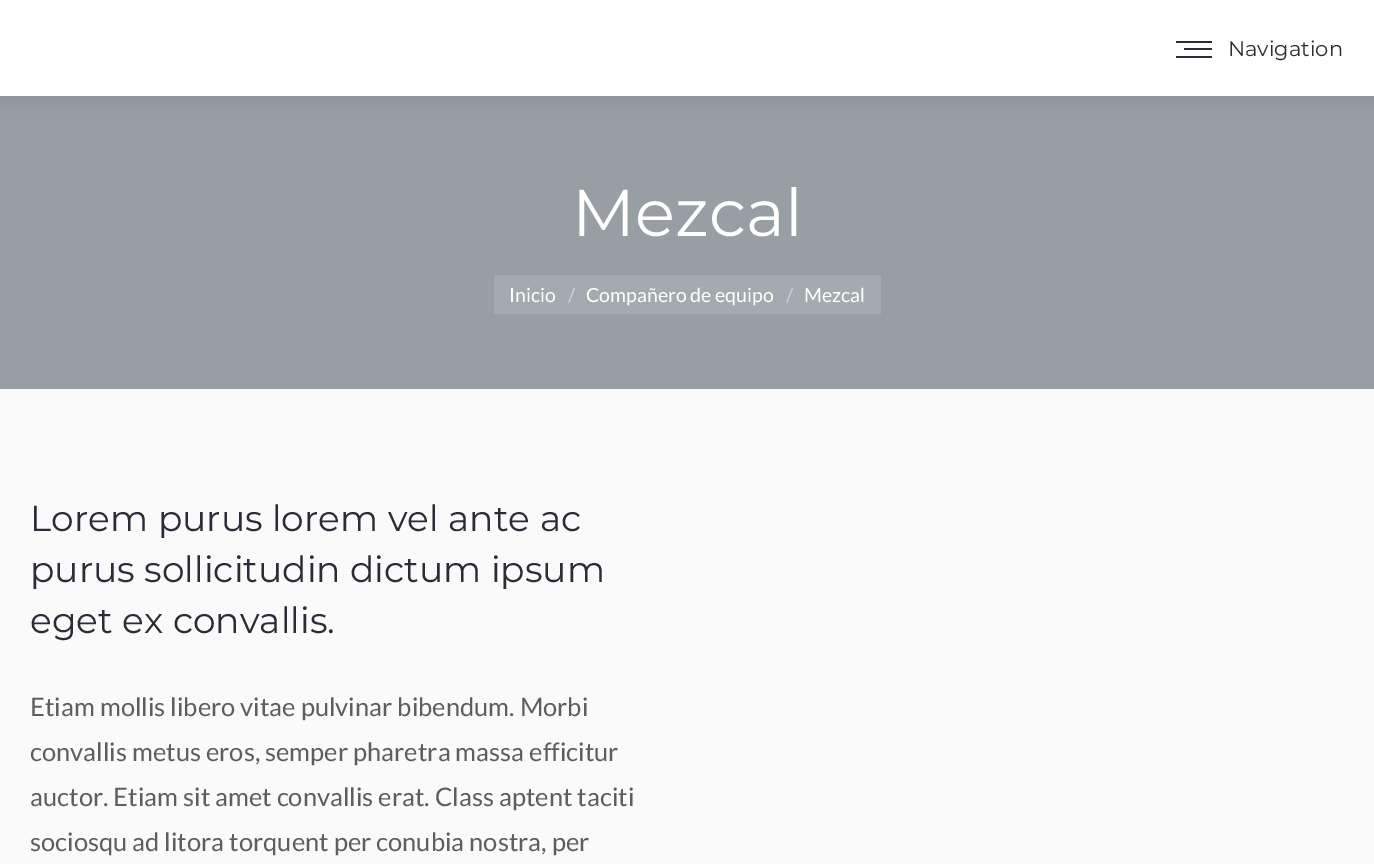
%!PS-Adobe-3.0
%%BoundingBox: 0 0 1374 864
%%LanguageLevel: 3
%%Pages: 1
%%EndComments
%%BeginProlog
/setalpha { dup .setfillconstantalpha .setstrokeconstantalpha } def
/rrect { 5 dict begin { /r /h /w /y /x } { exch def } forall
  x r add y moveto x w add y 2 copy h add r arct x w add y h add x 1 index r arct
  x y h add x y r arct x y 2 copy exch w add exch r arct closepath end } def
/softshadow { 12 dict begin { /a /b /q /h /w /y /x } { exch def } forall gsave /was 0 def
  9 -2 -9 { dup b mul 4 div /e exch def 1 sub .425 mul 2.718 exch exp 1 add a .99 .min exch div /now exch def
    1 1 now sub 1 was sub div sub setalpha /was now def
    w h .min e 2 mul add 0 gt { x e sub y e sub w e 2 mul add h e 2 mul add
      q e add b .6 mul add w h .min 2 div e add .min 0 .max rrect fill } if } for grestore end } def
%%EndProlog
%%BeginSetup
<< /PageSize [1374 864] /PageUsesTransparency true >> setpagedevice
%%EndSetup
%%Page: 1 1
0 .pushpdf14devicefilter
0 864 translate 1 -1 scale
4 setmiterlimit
0.984 0.98 0.98 setrgbcolor
0 0 1374 864 rectfill
0.592 0.624 0.639 setrgbcolor
0 96 1374 293 rectfill
0 setgray
-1 -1 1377 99 0 11 0.07 softshadow
1 setgray
0 0 1374 96 rectfill
0.18 0.169 0.212 setrgbcolor
1176 41 36 2 rectfill
1184 48 28 2 rectfill
1176 56 36 2 rectfill
0.639 0.671 0.682 setrgbcolor
494 275 387 39 rectfill
/Montserrat-Regular [21 0 0 -21 0 0] selectfont
0.18 0.169 0.212 setrgbcolor
1228 56 moveto (Navigation) show
/Montserrat-Regular [66 0 0 -66 0 0] selectfont
1 setgray
572 236 moveto (Mezcal) show
/Lato-Regular [19.5 0 0 -19.5 0 0] selectfont
509 302 moveto (Inicio) show
0.82 0.835 0.843 setrgbcolor
568 302 moveto (/) show
1 setgray
586 302 moveto (Compañero de equipo) show
0.82 0.835 0.843 setrgbcolor
786 302 moveto (/) show
1 setgray
804 302 moveto (Mezcal) show
/Montserrat-Regular [36 0 0 -36 0 0] selectfont
0.18 0.169 0.212 setrgbcolor
30 531 moveto (Lorem purus lorem vel ante ac) show
30 582 moveto (purus sollicitudin dictum ipsum) show
30 633 moveto (eget ex convallis.) show
/Lato-Regular [25.5 0 0 -25.5 0 0] selectfont
0.369 setgray
30 716 moveto (Etiam mollis libero vitae pulvinar bibendum. Morbi) show
30 761 moveto (convallis metus eros, semper pharetra massa efficitur) show
30 806 moveto (auctor. Etiam sit amet convallis erat. Class aptent taciti) show
30 851 moveto (sociosqu ad litora torquent per conubia nostra, per) show
.poppdf14devicefilter showpage
%%EOF
